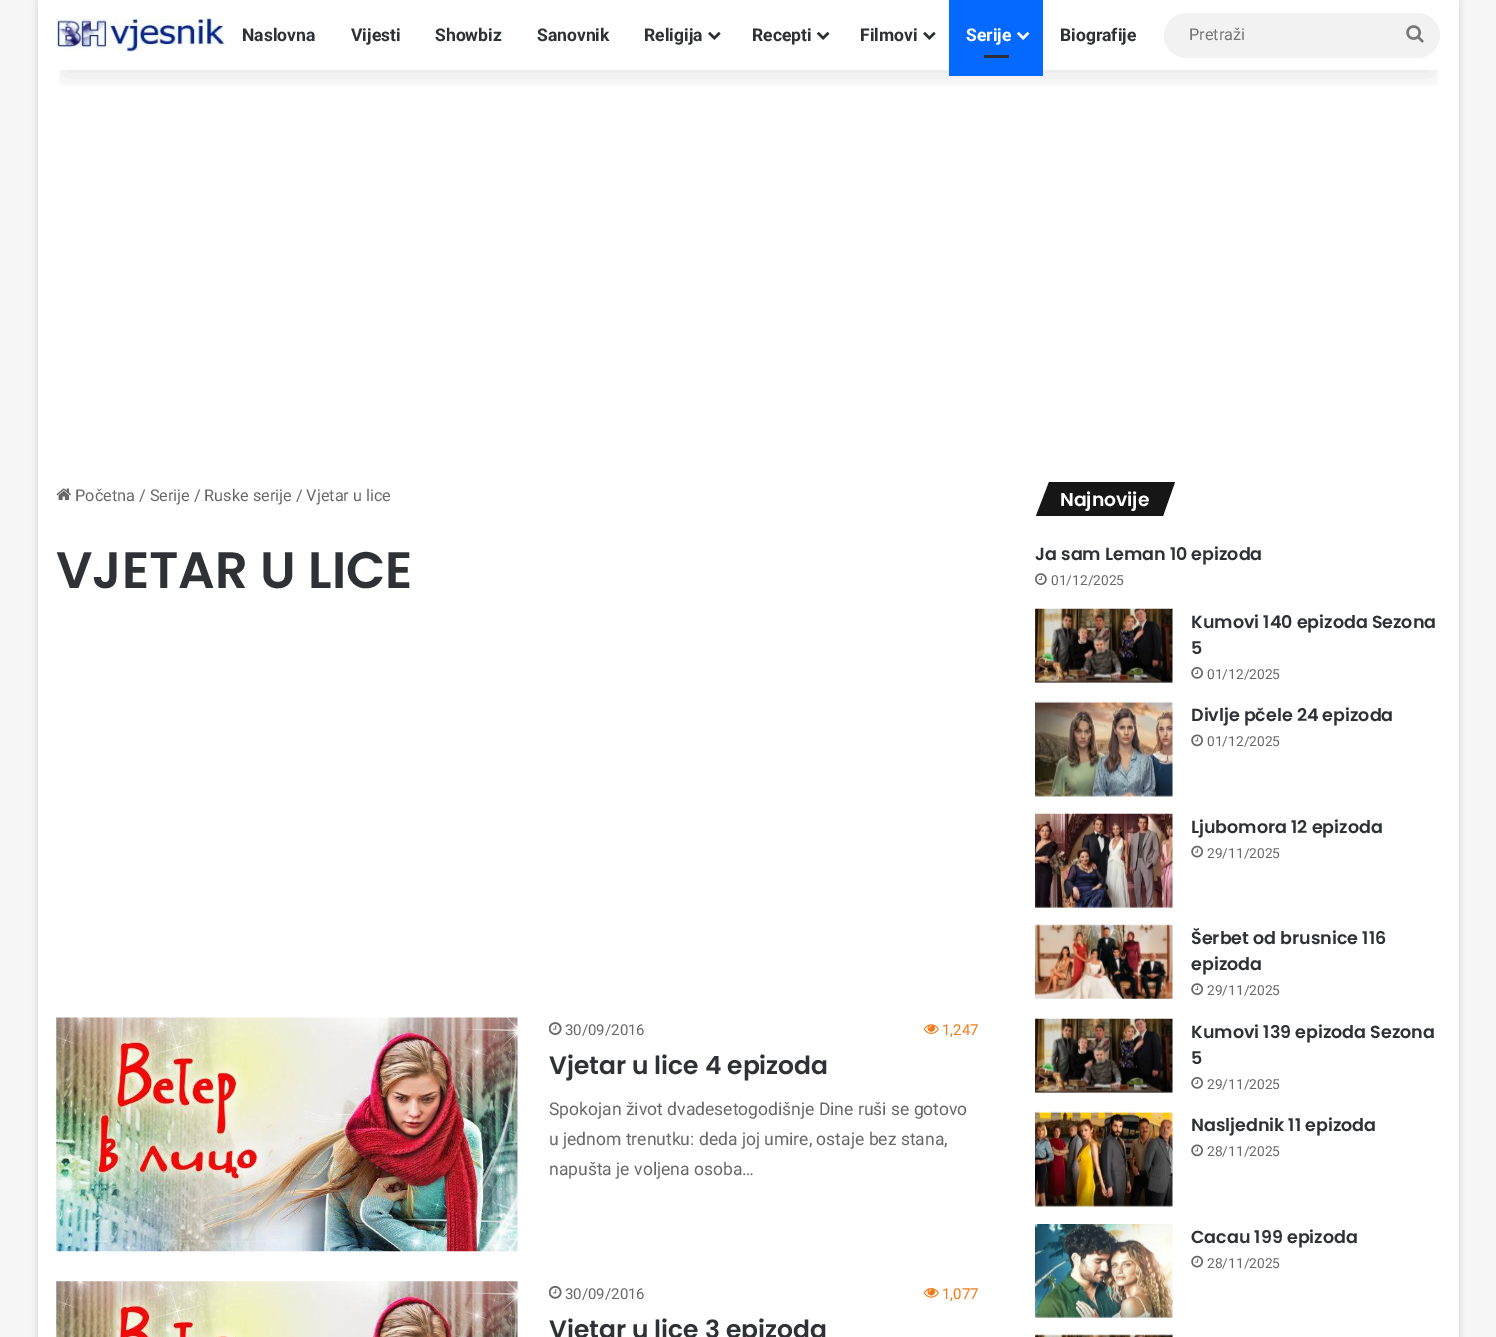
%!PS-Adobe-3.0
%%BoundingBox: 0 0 1496 1337
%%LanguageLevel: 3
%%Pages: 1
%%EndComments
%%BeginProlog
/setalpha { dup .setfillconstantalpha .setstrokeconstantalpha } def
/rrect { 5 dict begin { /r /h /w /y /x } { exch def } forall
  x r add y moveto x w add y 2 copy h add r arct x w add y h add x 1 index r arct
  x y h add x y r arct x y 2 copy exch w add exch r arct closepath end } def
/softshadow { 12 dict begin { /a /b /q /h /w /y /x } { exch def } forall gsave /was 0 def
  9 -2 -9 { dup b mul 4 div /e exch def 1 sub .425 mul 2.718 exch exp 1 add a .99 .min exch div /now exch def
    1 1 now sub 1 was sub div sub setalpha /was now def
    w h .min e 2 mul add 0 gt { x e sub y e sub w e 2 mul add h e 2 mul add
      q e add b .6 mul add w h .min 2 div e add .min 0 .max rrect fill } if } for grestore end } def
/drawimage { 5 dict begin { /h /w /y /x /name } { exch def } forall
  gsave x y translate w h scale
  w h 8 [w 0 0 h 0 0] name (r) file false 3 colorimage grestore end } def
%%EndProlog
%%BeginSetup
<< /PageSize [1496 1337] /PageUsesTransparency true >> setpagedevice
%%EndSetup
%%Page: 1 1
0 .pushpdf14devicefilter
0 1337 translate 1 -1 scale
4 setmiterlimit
0.969 setgray
0 0 1496 1337 rectfill
0.671 setgray
38 1 1421 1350 0 4.5 0.5 softshadow
1 setgray
38 0 1421 1337 rectfill
gsave
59 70 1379 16 rectclip
0 setgray
63 56 1371 20 0 12.5 0.1 softshadow
grestore
(images/1.raw) 56 18 169 34 drawimage
(images/2.raw) 708 32 13 8 drawimage
(images/3.raw) 817 32 13 8 drawimage
(images/2.raw) 923 32 13 8 drawimage
0.024 0.412 1 setrgbcolor
949 0 94 76 rectfill
(images/4.raw) 1017 32 13 8 drawimage
0.173 0.184 0.204 setrgbcolor
984 55 25 3 rectfill
0.949 setgray
1164 13 276 45 22.5 rrect fill
(images/5.raw) 1406 25 18 18 drawimage
(images/6.raw) 56 488 16 13 drawimage
(images/7.raw) 56 1017 462 235 drawimage
(images/8.raw) 549 1022 13 13 drawimage
(images/9.raw) 923 1024 16 10 drawimage
(images/10.raw) 56 1281 462 56 drawimage
(images/11.raw) 549 1285 13 14 drawimage
(images/12.raw) 923 1288 16 10 drawimage
0.086 setgray
newpath 1049 482 moveto 1175 482 lineto 1163 516 lineto 1036 516 lineto closepath fill
(images/13.raw) 1035 573 12 12 drawimage
(images/14.raw) 1035 608 138 75 drawimage
(images/15.raw) 1191 667 12 12 drawimage
(images/16.raw) 1035 701 138 96 drawimage
(images/17.raw) 1191 734 12 13 drawimage
(images/18.raw) 1035 813 138 95 drawimage
(images/19.raw) 1191 845 12 13 drawimage
(images/20.raw) 1035 924 138 75 drawimage
(images/21.raw) 1191 983 12 12 drawimage
(images/14.raw) 1035 1018 138 75 drawimage
(images/15.raw) 1191 1077 12 12 drawimage
(images/22.raw) 1035 1111 138 96 drawimage
(images/17.raw) 1191 1144 12 13 drawimage
(images/23.raw) 1035 1224 138 94 drawimage
(images/19.raw) 1191 1255 12 13 drawimage
(images/24.raw) 1035 1334 138 3 drawimage
/Roboto-Bold [17.5 0 0 -17.5 0 0] selectfont
0.18 0.192 0.212 setrgbcolor
242 41 moveto (Naslovna) show
351 41 moveto (Vijesti) show
435 41 moveto (Showbiz) show
537 41 moveto (Sanovnik) show
644 41 moveto (Religija) show
752 41 moveto (Recepti) show
860 41 moveto (Filmovi) show
1 setgray
966 41 moveto (Serije) show
0.18 0.192 0.212 setrgbcolor
1060 41 moveto (Biografije) show
/Roboto-Regular [16.25 0 0 -16.25 0 0] selectfont
0.459 setgray
1189 40 moveto (Pretraži) show
0.408 setgray
75 501 moveto (Početna / Serije / Ruske serije / Vjetar u lice) show
/Poppins-SemiBold [51.25 0 0 -51.25 0 0] selectfont
0.18 0.192 0.212 setrgbcolor
56 588 moveto (VJETAR U LICE) show
/Roboto-Regular [15 0 0 -15 0 0] selectfont
0.408 setgray
565 1035 moveto (30/09/2016) show
0.957 0.463 0.078 setrgbcolor
942 1035 moveto (1,247) show
/Poppins-SemiBold [25 0 0 -25 0 0] selectfont
0.18 0.192 0.212 setrgbcolor
549 1074 moveto (Vjetar u lice 4 epizoda) show
/Roboto-Regular [17.5 0 0 -17.5 0 0] selectfont
0.408 setgray
549 1115 moveto (Spokojan život dvadesetogodišnje Dine ruši se gotovo) show
549 1145 moveto (u jednom trenutku: deda joj umire, ostaje bez stana,) show
549 1175 moveto (napušta je voljena osoba…) show
/Roboto-Regular [15 0 0 -15 0 0] selectfont
565 1299 moveto (30/09/2016) show
0.957 0.463 0.078 setrgbcolor
942 1299 moveto (1,077) show
/Poppins-SemiBold [25 0 0 -25 0 0] selectfont
0.18 0.192 0.212 setrgbcolor
549 1338 moveto (Vjetar u lice 3 epizoda) show
/Poppins-SemiBold [18.75 0 0 -18.75 0 0] selectfont
1 setgray
1060 506 moveto (Najnovije) show
/Poppins-SemiBold [17.5 0 0 -17.5 0 0] selectfont
0.18 0.192 0.212 setrgbcolor
1035 560 moveto (Ja sam Leman 10 epizoda) show
/Roboto-Regular [13.75 0 0 -13.75 0 0] selectfont
0.408 setgray
1051 585 moveto (01/12/2025) show
/Poppins-SemiBold [17.5 0 0 -17.5 0 0] selectfont
0.18 0.192 0.212 setrgbcolor
1191 628 moveto (Kumovi 140 epizoda Sezona) show
1191 654 moveto (5) show
/Roboto-Regular [13.75 0 0 -13.75 0 0] selectfont
0.408 setgray
1207 679 moveto (01/12/2025) show
/Poppins-SemiBold [17.5 0 0 -17.5 0 0] selectfont
0.18 0.192 0.212 setrgbcolor
1191 721 moveto (Divlje pčele 24 epizoda) show
/Roboto-Regular [13.75 0 0 -13.75 0 0] selectfont
0.408 setgray
1207 746 moveto (01/12/2025) show
/Poppins-SemiBold [17.5 0 0 -17.5 0 0] selectfont
0.18 0.192 0.212 setrgbcolor
1191 833 moveto (Ljubomora 12 epizoda) show
/Roboto-Regular [13.75 0 0 -13.75 0 0] selectfont
0.408 setgray
1207 858 moveto (29/11/2025) show
/Poppins-SemiBold [17.5 0 0 -17.5 0 0] selectfont
0.18 0.192 0.212 setrgbcolor
1191 944 moveto (Šerbet od brusnice 116) show
1191 970 moveto (epizoda) show
/Roboto-Regular [13.75 0 0 -13.75 0 0] selectfont
0.408 setgray
1207 995 moveto (29/11/2025) show
/Poppins-SemiBold [17.5 0 0 -17.5 0 0] selectfont
0.18 0.192 0.212 setrgbcolor
1191 1038 moveto (Kumovi 139 epizoda Sezona) show
1191 1064 moveto (5) show
/Roboto-Regular [13.75 0 0 -13.75 0 0] selectfont
0.408 setgray
1207 1089 moveto (29/11/2025) show
/Poppins-SemiBold [17.5 0 0 -17.5 0 0] selectfont
0.18 0.192 0.212 setrgbcolor
1191 1131 moveto (Nasljednik 11 epizoda) show
/Roboto-Regular [13.75 0 0 -13.75 0 0] selectfont
0.408 setgray
1207 1156 moveto (28/11/2025) show
/Poppins-SemiBold [17.5 0 0 -17.5 0 0] selectfont
0.18 0.192 0.212 setrgbcolor
1191 1243 moveto (Cacau 199 epizoda) show
/Roboto-Regular [13.75 0 0 -13.75 0 0] selectfont
0.408 setgray
1207 1268 moveto (28/11/2025) show
.poppdf14devicefilter showpage
%%EOF
